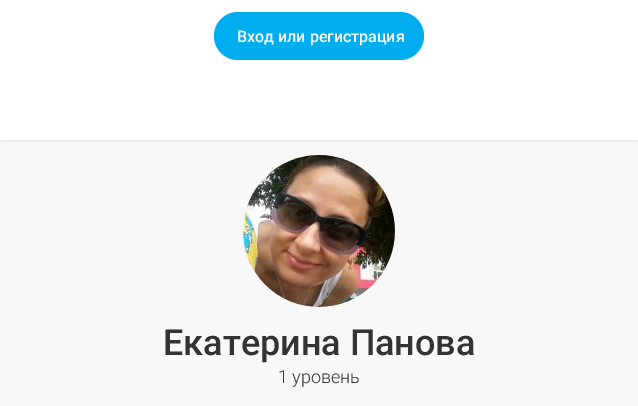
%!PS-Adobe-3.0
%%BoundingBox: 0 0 638 406
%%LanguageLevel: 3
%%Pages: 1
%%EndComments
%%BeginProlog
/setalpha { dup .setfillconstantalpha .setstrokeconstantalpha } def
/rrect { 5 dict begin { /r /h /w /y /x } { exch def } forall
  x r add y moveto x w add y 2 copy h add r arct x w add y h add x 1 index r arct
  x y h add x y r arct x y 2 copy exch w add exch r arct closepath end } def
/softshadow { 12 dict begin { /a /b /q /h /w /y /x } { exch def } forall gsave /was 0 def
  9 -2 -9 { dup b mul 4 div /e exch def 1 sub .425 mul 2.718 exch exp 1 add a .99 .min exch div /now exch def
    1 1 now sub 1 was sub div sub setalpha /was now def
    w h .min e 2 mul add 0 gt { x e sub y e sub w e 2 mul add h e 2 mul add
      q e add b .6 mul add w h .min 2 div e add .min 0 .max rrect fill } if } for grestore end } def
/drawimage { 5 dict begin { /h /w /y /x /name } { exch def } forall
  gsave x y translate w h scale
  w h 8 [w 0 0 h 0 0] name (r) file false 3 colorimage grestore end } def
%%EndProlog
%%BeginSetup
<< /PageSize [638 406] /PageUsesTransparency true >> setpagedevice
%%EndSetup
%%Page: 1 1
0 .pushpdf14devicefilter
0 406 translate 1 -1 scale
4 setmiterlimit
0.973 setgray
0 0 638 406 rectfill
0 setgray
0 1 638 140 0 1 0.1 softshadow
1 setgray
0 0 638 140 rectfill
0 0.682 0.937 setrgbcolor
214 12 210 48 24 rrect fill
(images/1.raw) 243 155 152 152 drawimage
/Roboto-Medium [16 0 0 -16 0 0] selectfont
1 setgray
237 42 moveto (Вход или регистрация) show
/Roboto-Medium [36 0 0 -36 0 0] selectfont
0.2 setgray
163 355 moveto (Екатерина Панова) show
/Roboto-Light [18 0 0 -18 0 0] selectfont
278 383 moveto (1 уровень) show
.poppdf14devicefilter showpage
%%EOF
